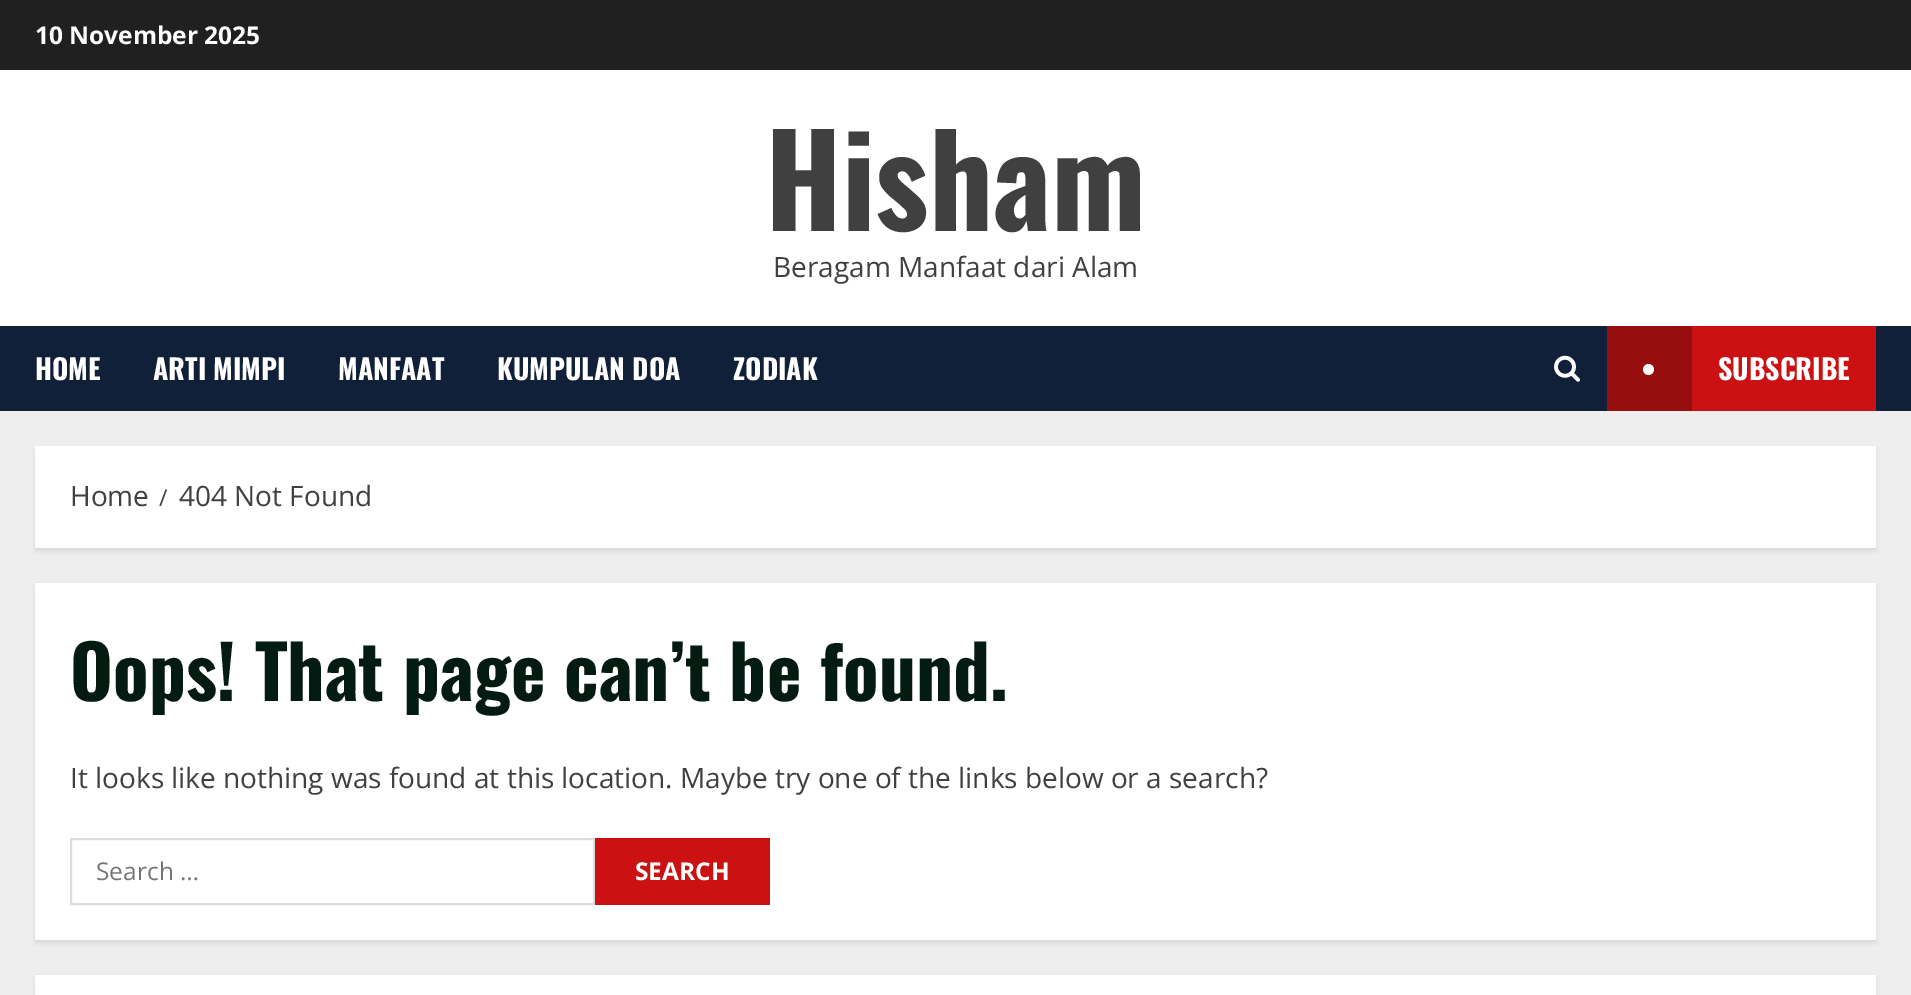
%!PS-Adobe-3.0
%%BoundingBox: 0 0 1911 995
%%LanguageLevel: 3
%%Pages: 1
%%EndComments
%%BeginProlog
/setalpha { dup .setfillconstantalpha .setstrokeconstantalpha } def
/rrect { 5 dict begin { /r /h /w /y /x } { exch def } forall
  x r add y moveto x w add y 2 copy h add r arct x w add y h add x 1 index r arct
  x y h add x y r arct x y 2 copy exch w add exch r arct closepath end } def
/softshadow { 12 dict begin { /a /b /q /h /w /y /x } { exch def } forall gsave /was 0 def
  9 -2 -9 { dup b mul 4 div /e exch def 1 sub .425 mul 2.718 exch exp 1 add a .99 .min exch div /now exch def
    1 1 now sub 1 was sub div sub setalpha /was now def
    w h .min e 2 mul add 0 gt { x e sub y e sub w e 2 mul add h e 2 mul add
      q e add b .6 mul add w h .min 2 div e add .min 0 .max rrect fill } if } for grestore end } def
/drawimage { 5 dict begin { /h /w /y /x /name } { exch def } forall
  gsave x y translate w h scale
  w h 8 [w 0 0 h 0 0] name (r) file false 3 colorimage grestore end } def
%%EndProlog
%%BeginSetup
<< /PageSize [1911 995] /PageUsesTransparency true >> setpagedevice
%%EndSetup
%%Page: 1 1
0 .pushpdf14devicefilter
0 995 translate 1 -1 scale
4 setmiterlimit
0.933 setgray
0 0 1911 995 rectfill
0.125 setgray
0 0 1911 70 rectfill
1 setgray
0 70 1911 256 rectfill
0.063 0.125 0.224 setrgbcolor
0 326 1911 85 rectfill
(images/1.raw) 1554 355 26 27 drawimage
0.796 0.067 0.067 setrgbcolor
1692 326 184 85 rectfill
0.596 0.051 0.051 setrgbcolor
1607 326 85 85 rectfill
1 setgray
newpath 1648.5 369.5 5.5 0 360 arc closepath fill
0 setgray
35 450 1841 101 0 2 0.08 softshadow
1 setgray
35 446 1841 102 rectfill
0 setgray
35 586 1841 357 0 2 0.08 softshadow
1 setgray
35 583 1841 357 rectfill
0.863 setgray
2 setlinewidth
71 839 523 65 rectstroke
0.796 0.067 0.067 setrgbcolor
595 838 175 67 rectfill
0 setgray
35 978 1841 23 0 2 0.08 softshadow
1 setgray
35 975 1841 20 rectfill
/OpenSans-Bold [24.5 0 0 -24.5 0 0] selectfont
35 44 moveto (10 November 2025) show
/Oswald-Bold [126 0 0 -126 0 0] selectfont
0.251 setgray
765 231 moveto (Hisham) show
/OpenSans-Regular [28 0 0 -28 0 0] selectfont
773 277 moveto (Beragam Manfaat dari Alam) show
/Oswald-Bold [28 0 0 -28 0 0] selectfont
1 setgray
35 380 moveto (HOME) show
153 380 moveto (ARTI MIMPI) show
338 380 moveto (MANFAAT) show
497 380 moveto (KUMPULAN DOA) show
733 380 moveto (ZODIAK) show
1718 380 moveto (SUBSCRIBE) show
/OpenSans-Regular [28 0 0 -28 0 0] selectfont
0.251 setgray
70 506 moveto (Home) show
/OpenSans-Regular [23 0 0 -23 0 0] selectfont
159 506 moveto (/) show
/OpenSans-Regular [28 0 0 -28 0 0] selectfont
179 506 moveto (404 Not Found) show
/Oswald-Bold [73.5 0 0 -73.5 0 0] selectfont
0.012 0.106 0.067 setrgbcolor
70 701 moveto (Oops! That page can’t be found.) show
/OpenSans-Regular [28 0 0 -28 0 0] selectfont
0.251 setgray
70 788 moveto (It looks like nothing was found at this location. Maybe try one of the links below or a search?) show
/OpenSans-Regular [24.5 0 0 -24.5 0 0] selectfont
0.459 setgray
96 880 moveto (Search …) show
/OpenSans-Bold [24.5 0 0 -24.5 0 0] selectfont
1 setgray
635 880 moveto (SEARCH) show
.poppdf14devicefilter showpage
%%EOF
